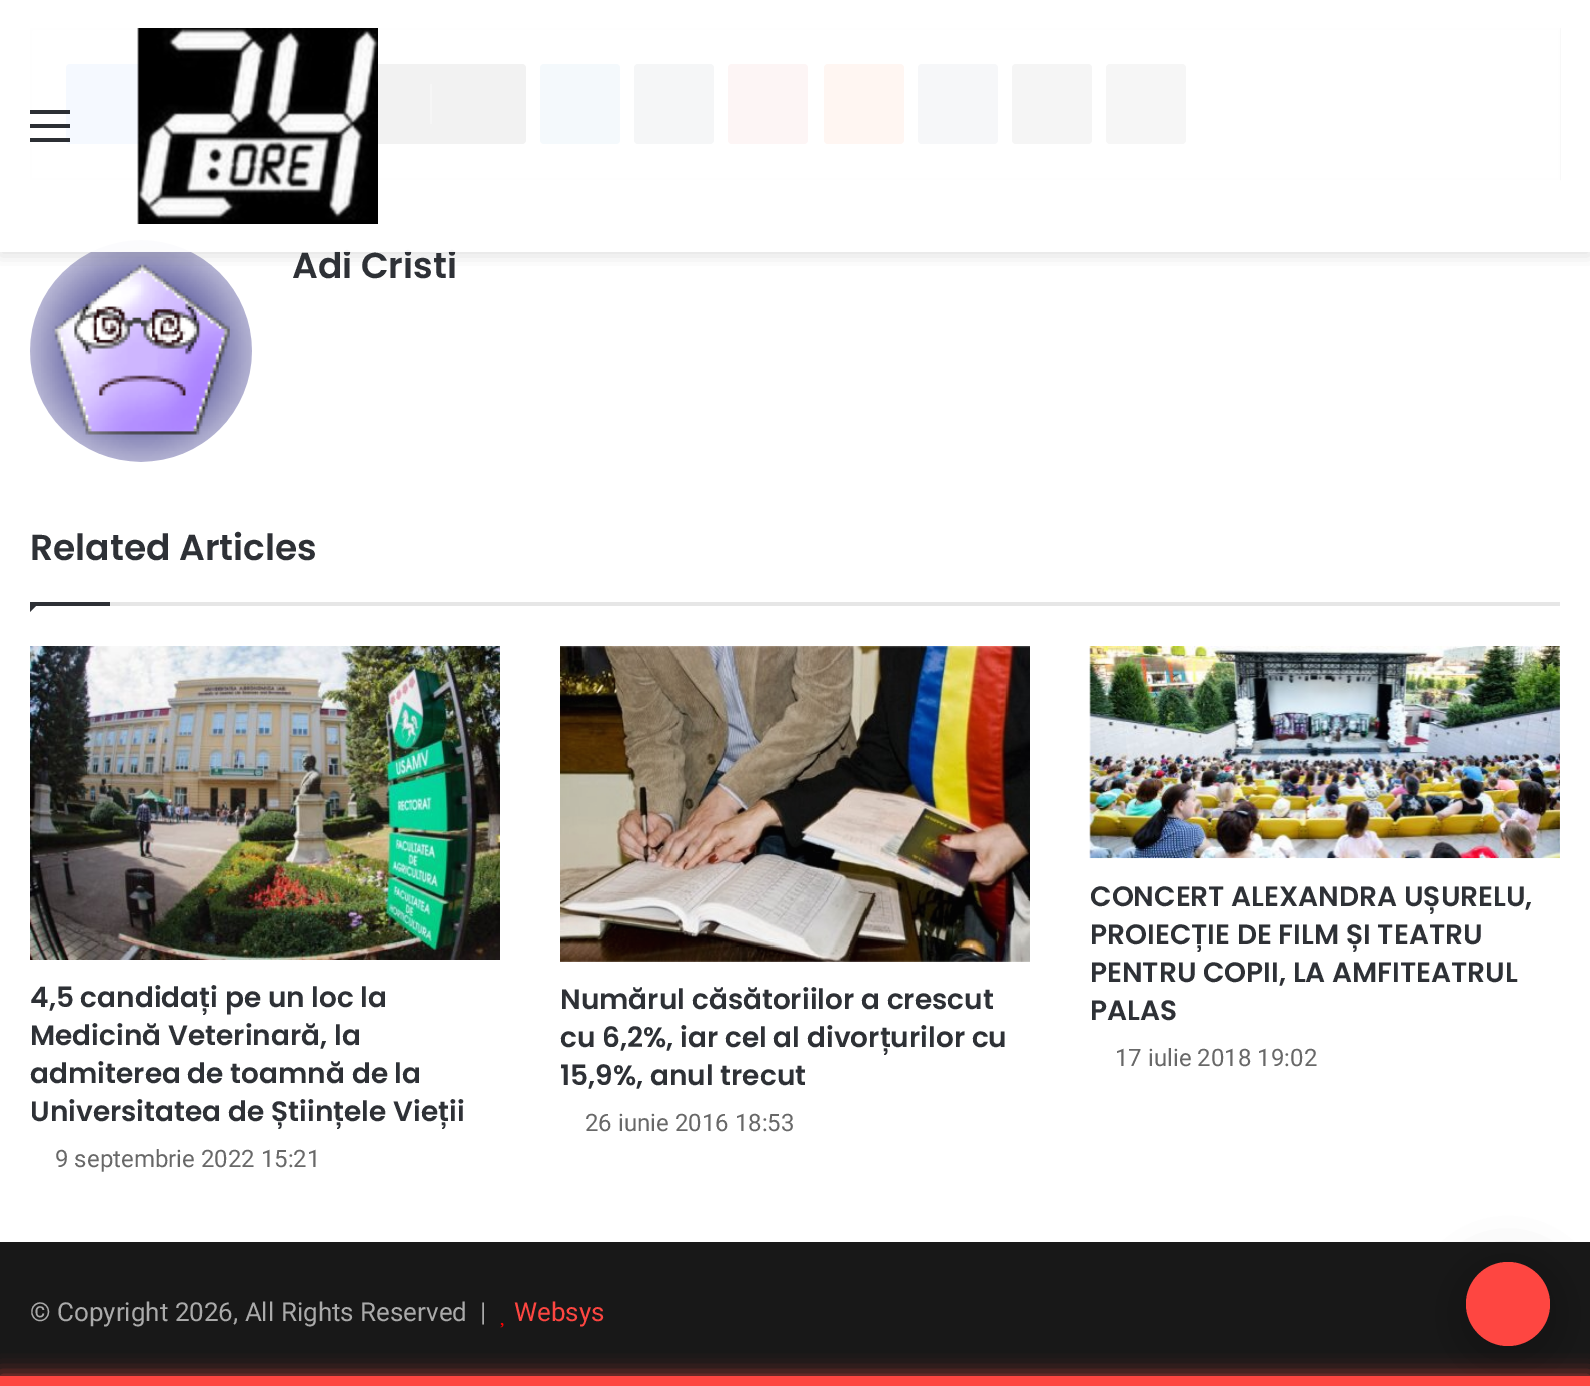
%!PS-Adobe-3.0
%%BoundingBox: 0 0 1590 1386
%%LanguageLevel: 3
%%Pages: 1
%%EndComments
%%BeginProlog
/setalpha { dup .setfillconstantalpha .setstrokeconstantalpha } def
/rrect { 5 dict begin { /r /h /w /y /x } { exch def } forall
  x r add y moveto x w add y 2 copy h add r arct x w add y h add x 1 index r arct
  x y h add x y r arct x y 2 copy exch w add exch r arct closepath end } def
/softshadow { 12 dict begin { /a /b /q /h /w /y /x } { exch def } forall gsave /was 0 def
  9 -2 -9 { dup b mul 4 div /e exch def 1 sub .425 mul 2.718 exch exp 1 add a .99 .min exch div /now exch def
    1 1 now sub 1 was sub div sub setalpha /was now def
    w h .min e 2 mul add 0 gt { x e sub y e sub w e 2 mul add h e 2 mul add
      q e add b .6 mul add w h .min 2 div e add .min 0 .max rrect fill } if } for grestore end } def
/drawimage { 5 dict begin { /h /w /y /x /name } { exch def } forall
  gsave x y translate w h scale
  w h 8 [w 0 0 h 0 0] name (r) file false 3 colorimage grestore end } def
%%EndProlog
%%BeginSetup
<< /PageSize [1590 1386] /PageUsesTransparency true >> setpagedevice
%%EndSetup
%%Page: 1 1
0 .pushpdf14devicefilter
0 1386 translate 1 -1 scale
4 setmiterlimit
1 setgray
0 0 1590 1386 rectfill
0.902 setgray
2 setlinewidth
31 29 1528 150 rectstroke
0.259 0.506 1 setrgbcolor
66 64 268 80 4 rrect fill
0.012 setgray
350 64 176 80 4 rrect fill
0.31 setgray
430 84 2 40 rectfill
0.145 0.553 0.788 setrgbcolor
540 64 80 80 4 rrect fill
0.216 0.282 0.369 setrgbcolor
634 64 80 80 4 rrect fill
0.882 0.2 0.227 setrgbcolor
728 64 80 80 4 rrect fill
1 0.278 0.012 setrgbcolor
824 64 80 80 4 rrect fill
0.278 0.408 0.561 setrgbcolor
918 64 80 80 4 rrect fill
0.208 setgray
1012 64 80 80 4 rrect fill
0.275 setgray
1106 64 80 80 4 rrect fill
(images/2.raw) 30 240 222 222 drawimage
gsave
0 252 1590 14 rectclip
0.388 setgray
0 4 1590 252 0 8 0.2 softshadow
grestore
0.902 setgray
110 602 1450 4 rectfill
0.18 0.192 0.212 setrgbcolor
newpath 30 602 moveto 40 602 lineto 30 612 lineto closepath fill
30 602 80 4 rectfill
(images/3.raw) 30 646 470 314 drawimage
(images/4.raw) 560 646 470 316 drawimage
(images/5.raw) 1089 646 471 213 drawimage
0.094 setgray
0 1242 1590 134 rectfill
(images/6.raw) 500 1322 4 6 drawimage
0 setgray
1466 1272 84 84 42 25 0.3 softshadow
0.996 0.275 0.255 setrgbcolor
newpath 1508 1304 42 0 360 arc closepath fill
0 1376 1590 10 0 10 0.7 softshadow
0 1376 1590 10 rectfill
/Poppins-SemiBold [36 0 0 -36 0 0] selectfont
0.18 0.192 0.212 setrgbcolor
292 278 moveto (Adi Cristi) show
0.95 setalpha
1 setgray
30 28 1530 224 rectfill
1 setalpha
0.173 0.184 0.204 setrgbcolor
30 138 40 4 rectfill
30 110 40 4 rectfill
30 124 40 4 rectfill
(images/1.raw) 137 28 241 196 drawimage
0.18 0.192 0.212 setrgbcolor
30 560 moveto (Related Articles) show
/Poppins-SemiBold [28 0 0 -28 0 0] selectfont
30 1007 moveto (4,5 candidați pe un loc la) show
30 1045 moveto (Medicină Veterinară, la) show
30 1083 moveto (admiterea de toamnă de la) show
30 1121 moveto (Universitatea de Științele Vieții) show
/Roboto-Regular [24 0 0 -24 0 0] selectfont
0.408 setgray
55 1167 moveto (9 septembrie 2022 15:21) show
/Poppins-SemiBold [28 0 0 -28 0 0] selectfont
0.18 0.192 0.212 setrgbcolor
560 1009 moveto (Numărul căsătoriilor a crescut) show
560 1047 moveto (cu 6,2%, iar cel al divorțurilor cu) show
560 1085 moveto (15,9%, anul trecut) show
/Roboto-Regular [24 0 0 -24 0 0] selectfont
0.408 setgray
585 1131 moveto (26 iunie 2016 18:53) show
/Poppins-SemiBold [28 0 0 -28 0 0] selectfont
0.18 0.192 0.212 setrgbcolor
1090 906 moveto (CONCERT ALEXANDRA UȘURELU,) show
1090 944 moveto (PROIECȚIE DE FILM ȘI TEATRU) show
1090 982 moveto (PENTRU COPII, LA AMFITEATRUL) show
1090 1020 moveto (PALAS) show
/Roboto-Regular [24 0 0 -24 0 0] selectfont
0.408 setgray
1115 1066 moveto (17 iulie 2018 19:02) show
/Roboto-Regular [26 0 0 -26 0 0] selectfont
0.667 setgray
30 1321 moveto (© Copyright 2026, All Rights Reserved  |) show
0.996 0.275 0.255 setrgbcolor
514 1321 moveto (Websys) show
.poppdf14devicefilter showpage
%%EOF
